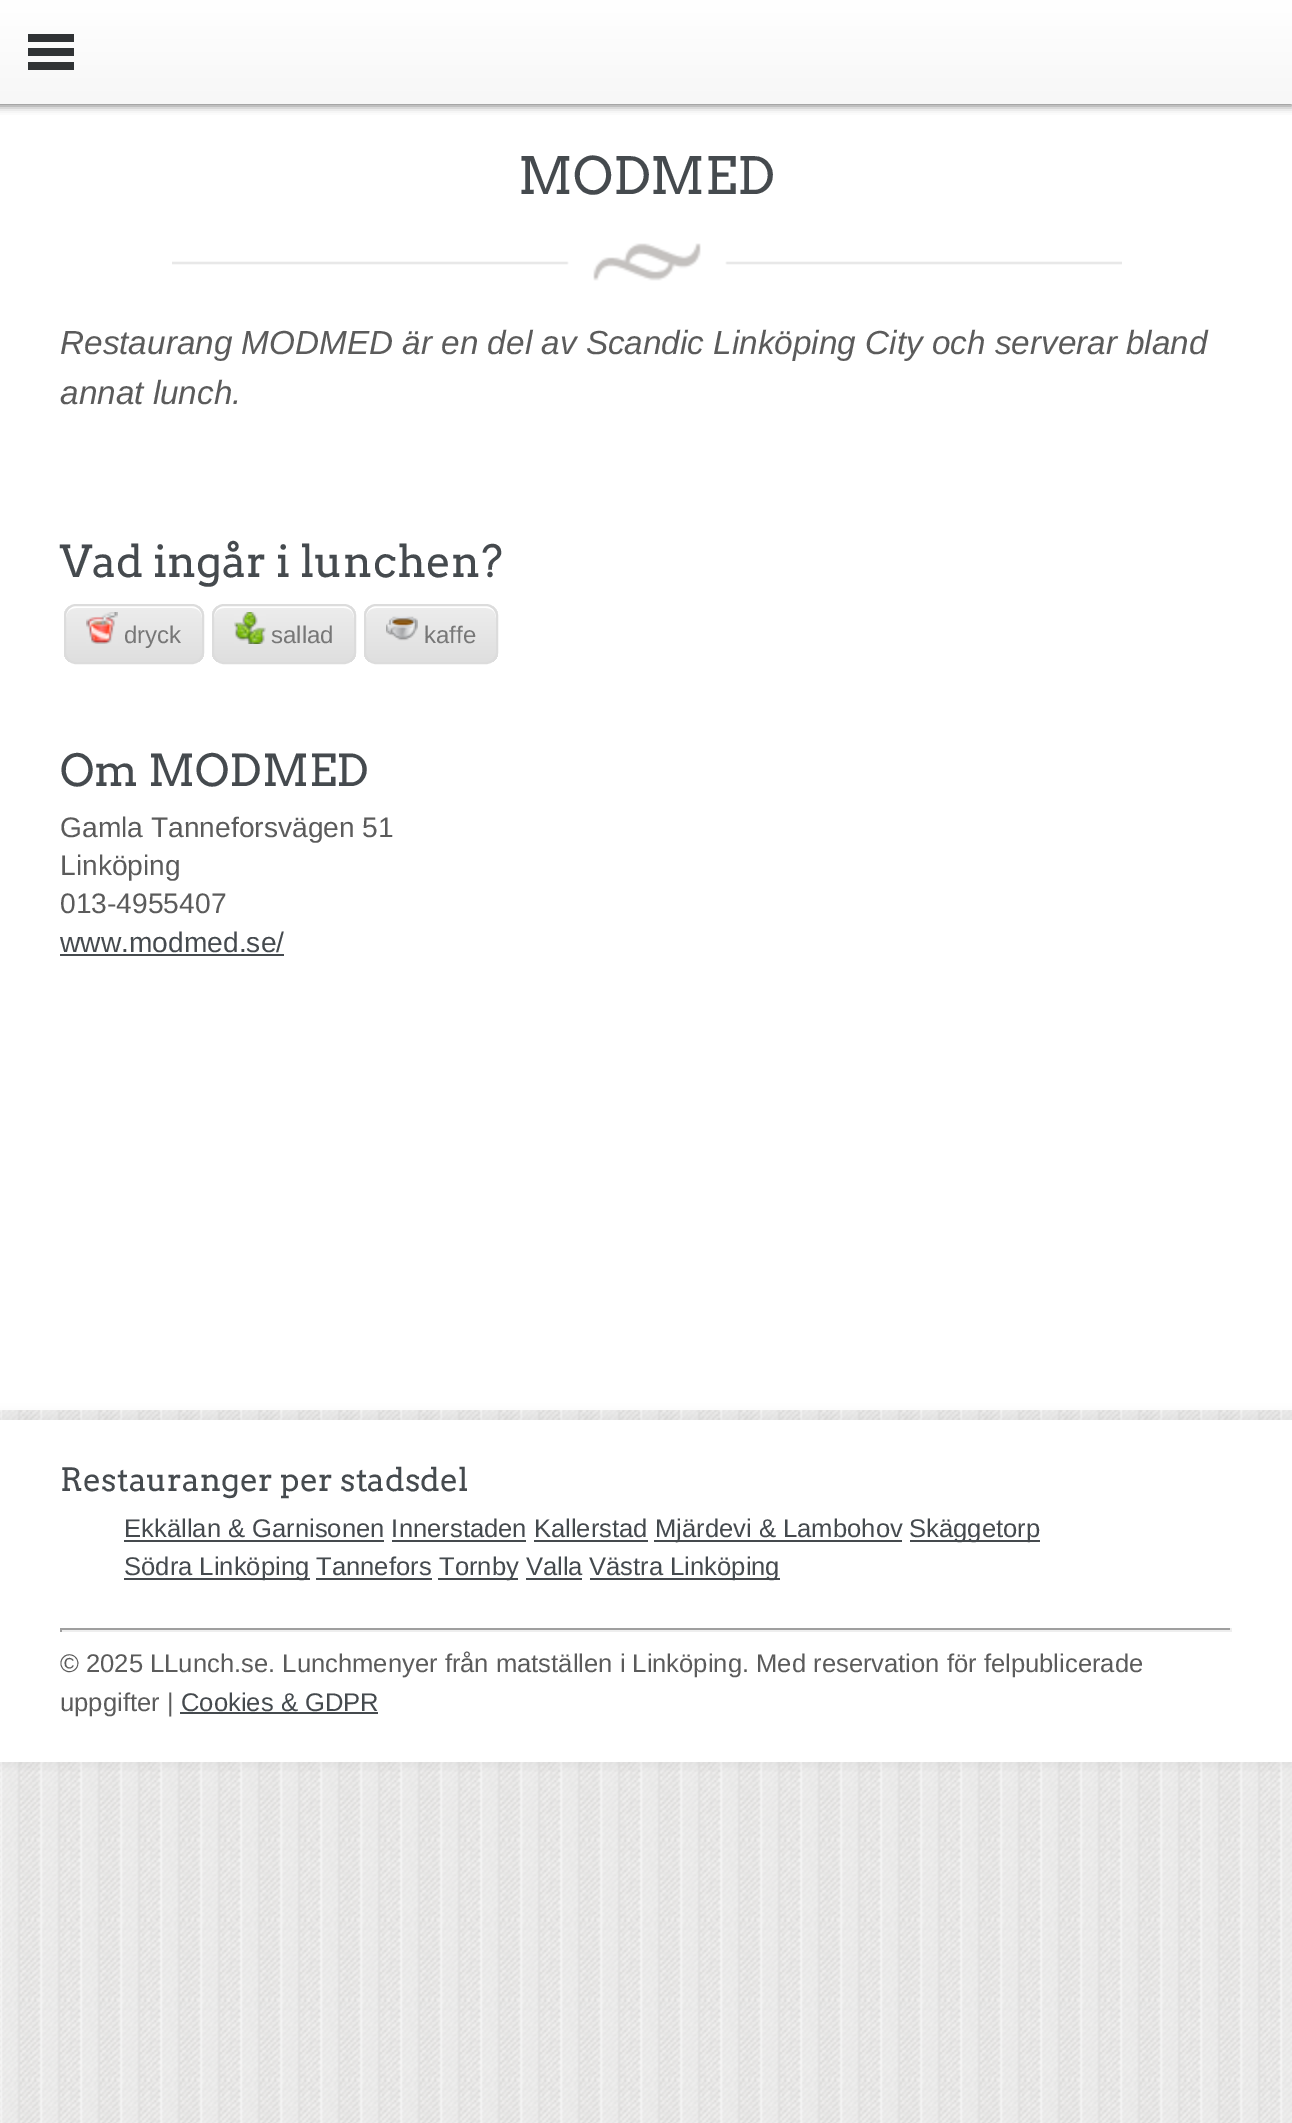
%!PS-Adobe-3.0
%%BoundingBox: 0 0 1292 2123
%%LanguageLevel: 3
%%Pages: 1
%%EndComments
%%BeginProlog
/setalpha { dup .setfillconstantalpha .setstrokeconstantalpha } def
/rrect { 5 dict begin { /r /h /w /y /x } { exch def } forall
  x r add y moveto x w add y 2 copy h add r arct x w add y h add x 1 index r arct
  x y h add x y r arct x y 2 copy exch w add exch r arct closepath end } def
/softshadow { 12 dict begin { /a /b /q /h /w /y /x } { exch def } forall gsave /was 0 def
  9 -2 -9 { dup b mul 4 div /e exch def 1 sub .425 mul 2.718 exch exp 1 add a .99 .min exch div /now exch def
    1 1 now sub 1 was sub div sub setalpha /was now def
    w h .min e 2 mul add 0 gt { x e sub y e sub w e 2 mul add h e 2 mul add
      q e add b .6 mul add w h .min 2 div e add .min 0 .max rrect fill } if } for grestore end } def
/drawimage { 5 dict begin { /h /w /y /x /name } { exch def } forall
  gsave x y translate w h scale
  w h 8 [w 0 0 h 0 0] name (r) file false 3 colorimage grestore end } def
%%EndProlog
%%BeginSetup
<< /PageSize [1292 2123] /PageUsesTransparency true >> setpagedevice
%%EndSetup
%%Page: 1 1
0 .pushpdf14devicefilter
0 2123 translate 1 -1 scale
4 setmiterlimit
1 setgray
0 0 1292 2123 rectfill
(images/1.raw) 0 1410 1292 713 drawimage
0 setgray
-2 2 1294 104 0 4 0.5 softshadow
gsave newpath 0 0 moveto 1292 0 lineto 1292 104 lineto 0 104 lineto closepath clip newpath
<< /ShadingType 2 /ColorSpace /DeviceRGB /Coords [645 0 645 104] /Extend [true true] /Function << /FunctionType 2 /Domain [0 1] /C0 [1 1 1] /C1 [0.969 0.969 0.969] /N 1 >> >> shfill grestore
0.188 0.2 0.208 setrgbcolor
28 34 46 8 rectfill
28 48 46 8 rectfill
28 62 46 8 rectfill
(images/2.raw) 172 243 950 38 drawimage
gsave
64 604 140 60 12 rrect clip newpath
gsave newpath 64 606 moveto 204 606 lineto 204 662 lineto 64 662 lineto closepath clip newpath
<< /ShadingType 2 /ColorSpace /DeviceRGB /Coords [134 606 134 662] /Extend [true true] /Function << /FunctionType 2 /Domain [0 1] /C0 [0.929 0.929 0.929] /C1 [0.875 0.875 0.875] /N 1 >> >> shfill grestore
grestore
1 setgray
newpath 76 608 moveto 192 608 lineto 198 608 202 612 202 618 curveto 202 601 185 606 173 606 curveto 95 606 lineto 83 606 66 601 66 618 curveto 66 612 70 608 76 608 curveto closepath fill
0.863 setgray
2 setlinewidth
65 605 138 58 11 rrect stroke
(images/3.raw) 86 612 32 32 drawimage
gsave
212 604 144 60 12 rrect clip newpath
gsave newpath 212 606 moveto 356 606 lineto 356 662 lineto 212 662 lineto closepath clip newpath
<< /ShadingType 2 /ColorSpace /DeviceRGB /Coords [284 606 284 662] /Extend [true true] /Function << /FunctionType 2 /Domain [0 1] /C0 [0.929 0.929 0.929] /C1 [0.875 0.875 0.875] /N 1 >> >> shfill grestore
grestore
1 setgray
newpath 224 608 moveto 344 608 lineto 350 608 354 612 354 618 curveto 354 601 336 606 324 606 curveto 244 606 lineto 232 606 214 601 214 618 curveto 214 612 218 608 224 608 curveto closepath fill
0.863 setgray
213 605 142 58 11 rrect stroke
(images/4.raw) 234 612 32 32 drawimage
gsave
364 604 134 60 12 rrect clip newpath
gsave newpath 364 606 moveto 498 606 lineto 498 662 lineto 364 662 lineto closepath clip newpath
<< /ShadingType 2 /ColorSpace /DeviceRGB /Coords [431 606 431 662] /Extend [true true] /Function << /FunctionType 2 /Domain [0 1] /C0 [0.929 0.929 0.929] /C1 [0.875 0.875 0.875] /N 1 >> >> shfill grestore
grestore
1 setgray
newpath 376 608 moveto 486 608 lineto 492 608 496 612 496 618 curveto 496 602 480 606 468 606 curveto 394 606 lineto 382 606 366 602 366 618 curveto 366 612 370 608 376 608 curveto closepath fill
0.863 setgray
365 605 132 58 11 rrect stroke
(images/5.raw) 386 616 32 25 drawimage
0.271 0.29 0.306 setrgbcolor
60 954 224 2 rectfill
gsave
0 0 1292 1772 rectclip
0.722 setgray
-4 1416 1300 350 0 6 0.2 softshadow
grestore
1 setgray
0 1420 1292 342 rectfill
0.271 0.29 0.306 setrgbcolor
124 1540 260 2 rectfill
654 1540 248 2 rectfill
910 1540 130 2 rectfill
392 1540 134 2 rectfill
534 1540 114 2 rectfill
124 1578 186 2 rectfill
438 1578 80 2 rectfill
590 1578 190 2 rectfill
316 1578 116 2 rectfill
526 1578 56 2 rectfill
0.624 setgray
60 1628 1172 2 rectfill
0.933 setgray
1230 1628 2 4 rectfill
60 1630 1172 2 rectfill
0.624 setgray
60 1628 2 4 rectfill
0.271 0.29 0.306 setrgbcolor
180 1712 198 2 rectfill
/Arvo-Regular [51.25 0 0 -51.25 0 0] selectfont
518 194 moveto (MODMED) show
/LiberationSans-Italic [33.3 0 0 -33.3 0 0] selectfont
0.357 setgray
60 354 moveto (Restaurang MODMED är en del av Scandic Linköping City och serverar bland) show
60 404 moveto (annat lunch.) show
/Arvo-Regular [44 0 0 -44 0 0] selectfont
0.271 0.29 0.306 setrgbcolor
60 577 moveto (Vad ingår i lunchen?) show
/LiberationSans-Regular [24 0 0 -24 0 0] selectfont
0.467 setgray
124 643 moveto (dryck) show
271 643 moveto (sallad) show
424 643 moveto (kaffe) show
/Arvo-Regular [44 0 0 -44 0 0] selectfont
0.271 0.29 0.306 setrgbcolor
60 786 moveto (Om MODMED) show
/LiberationSans-Regular [28.2 0 0 -28.2 0 0] selectfont
0.357 setgray
60 837 moveto (Gamla Tanneforsvägen 51) show
60 875 moveto (Linköping) show
60 913 moveto (013-4955407) show
0.271 0.29 0.306 setrgbcolor
60 952 moveto (www.modmed.se/) show
/Arvo-Regular [32 0 0 -32 0 0] selectfont
60 1491 moveto (Restauranger per stadsdel) show
/LiberationSans-Regular [25.6 0 0 -25.6 0 0] selectfont
124 1537 moveto (Ekkällan & Garnisonen Innerstaden Kallerstad) show
655 1537 moveto (Mjärdevi & Lambohov) show
909 1537 moveto (Skäggetorp) show
124 1575 moveto (Södra Linköping Tannefors) show
439 1575 moveto (Tornby Valla) show
589 1575 moveto (Västra Linköping) show
0.357 setgray
60 1672 moveto (© 2025 LLunch.se. Lunchmenyer från matställen i Linköping. Med reservation för felpublicerade) show
60 1711 moveto (uppgifter |) show
0.271 0.29 0.306 setrgbcolor
181 1711 moveto (Cookies & GDPR) show
.poppdf14devicefilter showpage
%%EOF
